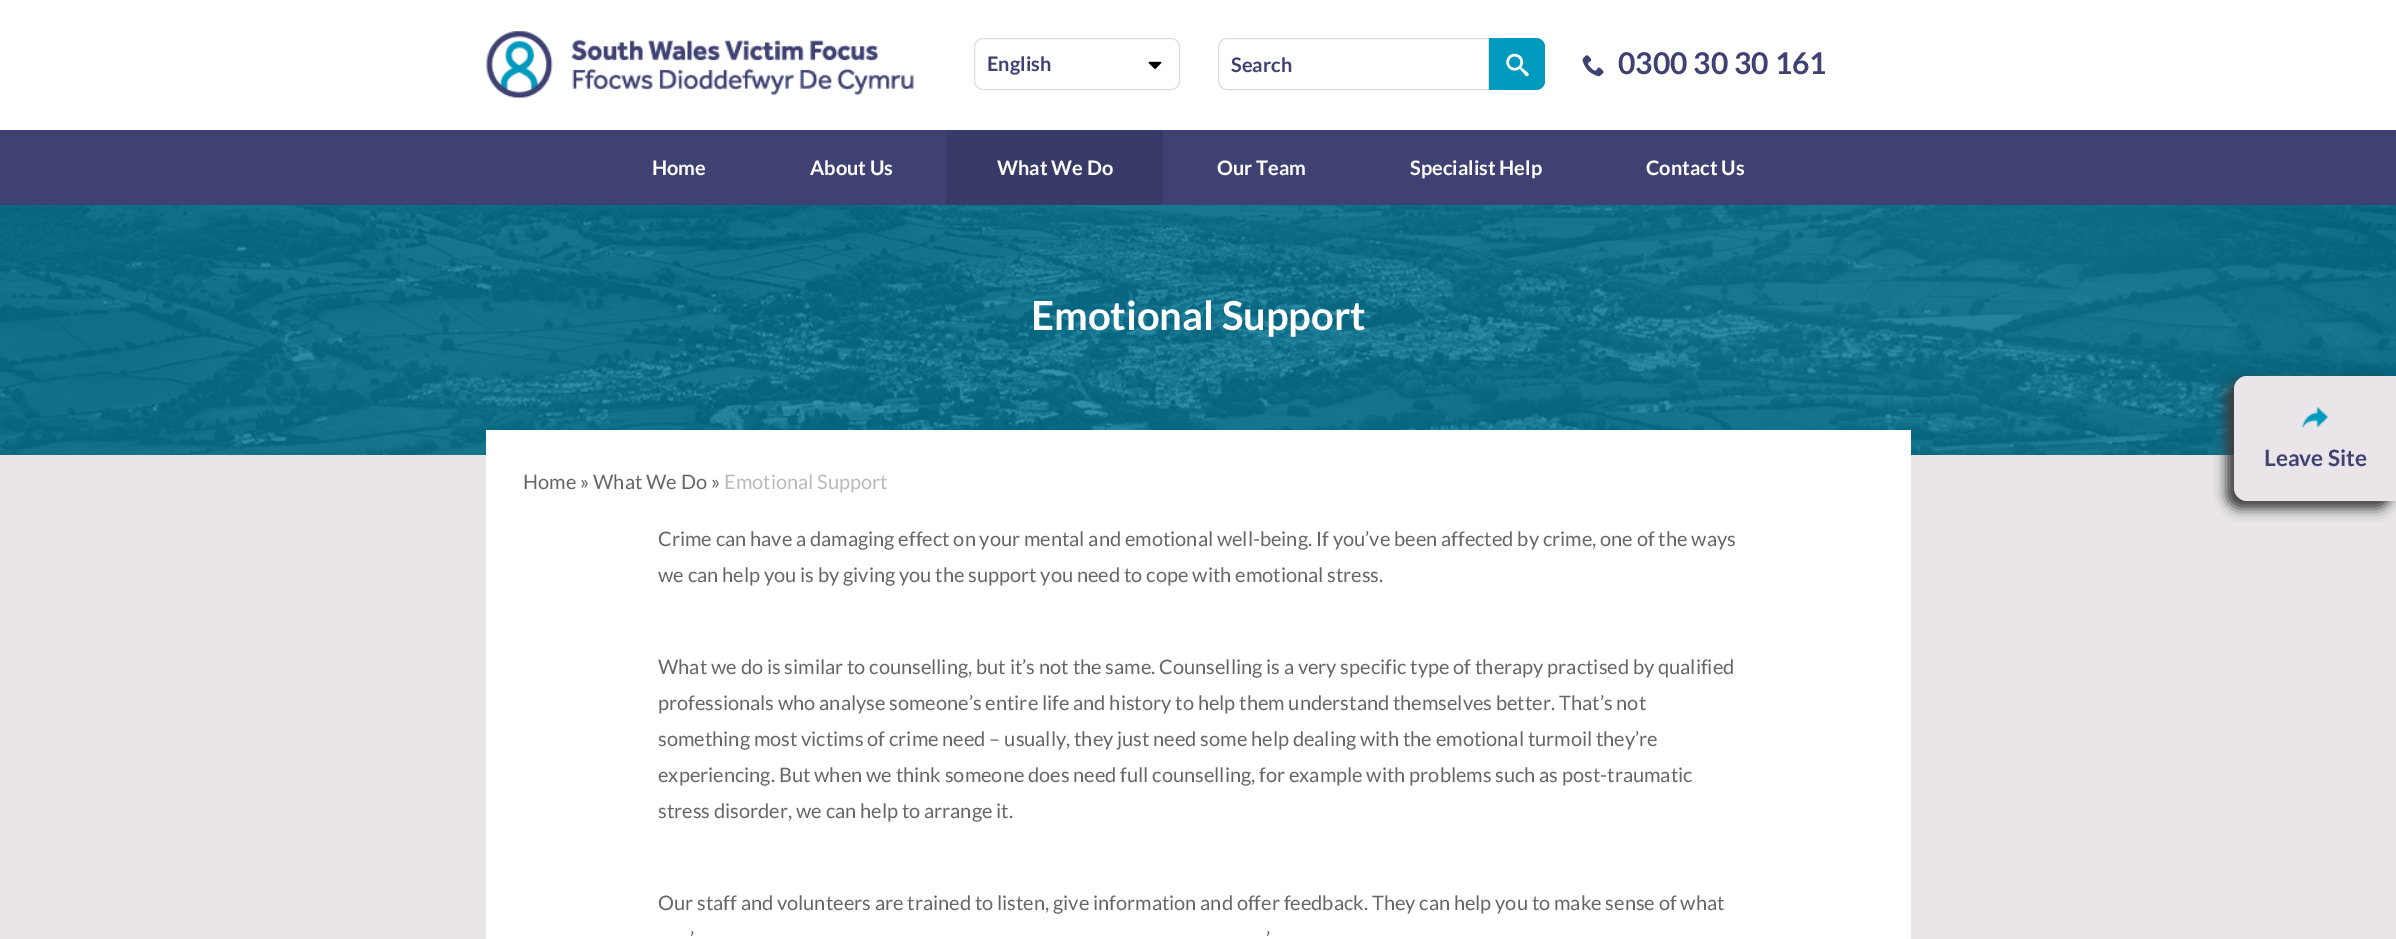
%!PS-Adobe-3.0
%%BoundingBox: 0 0 2396 939
%%LanguageLevel: 3
%%Pages: 1
%%EndComments
%%BeginProlog
/setalpha { dup .setfillconstantalpha .setstrokeconstantalpha } def
/rrect { 5 dict begin { /r /h /w /y /x } { exch def } forall
  x r add y moveto x w add y 2 copy h add r arct x w add y h add x 1 index r arct
  x y h add x y r arct x y 2 copy exch w add exch r arct closepath end } def
/softshadow { 12 dict begin { /a /b /q /h /w /y /x } { exch def } forall gsave /was 0 def
  9 -2 -9 { dup b mul 4 div /e exch def 1 sub .425 mul 2.718 exch exp 1 add a .99 .min exch div /now exch def
    1 1 now sub 1 was sub div sub setalpha /was now def
    w h .min e 2 mul add 0 gt { x e sub y e sub w e 2 mul add h e 2 mul add
      q e add b .6 mul add w h .min 2 div e add .min 0 .max rrect fill } if } for grestore end } def
/drawimage { 5 dict begin { /h /w /y /x /name } { exch def } forall
  gsave x y translate w h scale
  w h 8 [w 0 0 h 0 0] name (r) file false 3 colorimage grestore end } def
%%EndProlog
%%BeginSetup
<< /PageSize [2396 939] /PageUsesTransparency true >> setpagedevice
%%EndSetup
%%Page: 1 1
0 .pushpdf14devicefilter
0 939 translate 1 -1 scale
4 setmiterlimit
0.914 0.898 0.91 setrgbcolor
0 0 2396 939 rectfill
1 setgray
0 0 2396 130 rectfill
(images/1.raw) 486 31 428 68 drawimage
0.867 setgray
974.5 38.5 205 51 8.5 rrect stroke
(images/2.raw) 1148 61 14 8 drawimage
newpath 1227 38.5 moveto 1488.5 38.5 lineto 1488.5 89.5 lineto 1227 89.5 lineto 1222.5 89.5 1218.5 85.5 1218.5 81 curveto 1218.5 47 lineto 1218.5 42.5 1222.5 38.5 1227 38.5 curveto closepath stroke
0 0.604 0.745 setrgbcolor
newpath 1489 38 moveto 1536 38 lineto 1541 38 1545 42 1545 47 curveto 1545 81 lineto 1545 86 1541 90 1536 90 curveto 1489 90 lineto closepath fill
(images/3.raw) 1506 53 23 24 drawimage
(images/4.raw) 1582 55 22 22 drawimage
0.243 0.255 0.443 setrgbcolor
0 130 2396 75 rectfill
0.22 0.227 0.404 setrgbcolor
946 130 217 75 rectfill
(images/5.raw) 0 205 2396 250 drawimage
0.235 setgray
2226 381 165 128 14 6 1 softshadow
0.914 0.898 0.91 setrgbcolor
newpath 2247 376 moveto 2396 376 lineto 2396 501 lineto 2247 501 lineto 2240 501 2234 495 2234 488 curveto 2234 389 lineto 2234 382 2240 376 2247 376 curveto closepath fill
(images/6.raw) 2302 407 26 21 drawimage
1 setgray
486 430 1425 509 rectfill
/Lato-Bold [20 0 0 -20 0 0] selectfont
0.243 0.255 0.443 setrgbcolor
987 71 moveto (English) show
1231 72 moveto (Search) show
/Lato-Bold [30 0 0 -30 0 0] selectfont
1618 74 moveto (0300 30 30 161) show
/Lato-Bold [20 0 0 -20 0 0] selectfont
1 setgray
652 175 moveto (Home) show
810 175 moveto (About Us) show
997 175 moveto (What We Do) show
1217 175 moveto (Our Team) show
1410 175 moveto (Specialist Help) show
1646 175 moveto (Contact Us) show
/Lato-Bold [40 0 0 -40 0 0] selectfont
1031 330 moveto (Emotional Support) show
/Lato-Bold [22.5 0 0 -22.5 0 0] selectfont
0.243 0.255 0.443 setrgbcolor
2264 466 moveto (Leave Site) show
/Lato-Regular [20 0 0 -20 0 0] selectfont
0.4 setgray
523 489 moveto (Home » What We Do ») show
0.725 setgray
724 489 moveto (Emotional Support) show
0.4 setgray
658 546 moveto (Crime can have a damaging effect on your mental and emotional well-being. If you’ve been affected by crime, one of the ways) show
658 582 moveto (we can help you is by giving you the support you need to cope with emotional stress.) show
658 674 moveto (What we do is similar to counselling, but it’s not the same. Counselling is a very specific type of therapy practised by qualified) show
658 710 moveto (professionals who analyse someone’s entire life and history to help them understand themselves better. That’s not) show
658 746 moveto (something most victims of crime need – usually, they just need some help dealing with the emotional turmoil they’re) show
658 782 moveto (experiencing. But when we think someone does need full counselling, for example with problems such as post-traumatic) show
658 818 moveto (stress disorder, we can help to arrange it.) show
658 910 moveto (Our staff and volunteers are trained to listen, give information and offer feedback. They can help you to make sense of what) show
690 946 moveto (’) show
1266 946 moveto (’) show
.poppdf14devicefilter showpage
%%EOF
